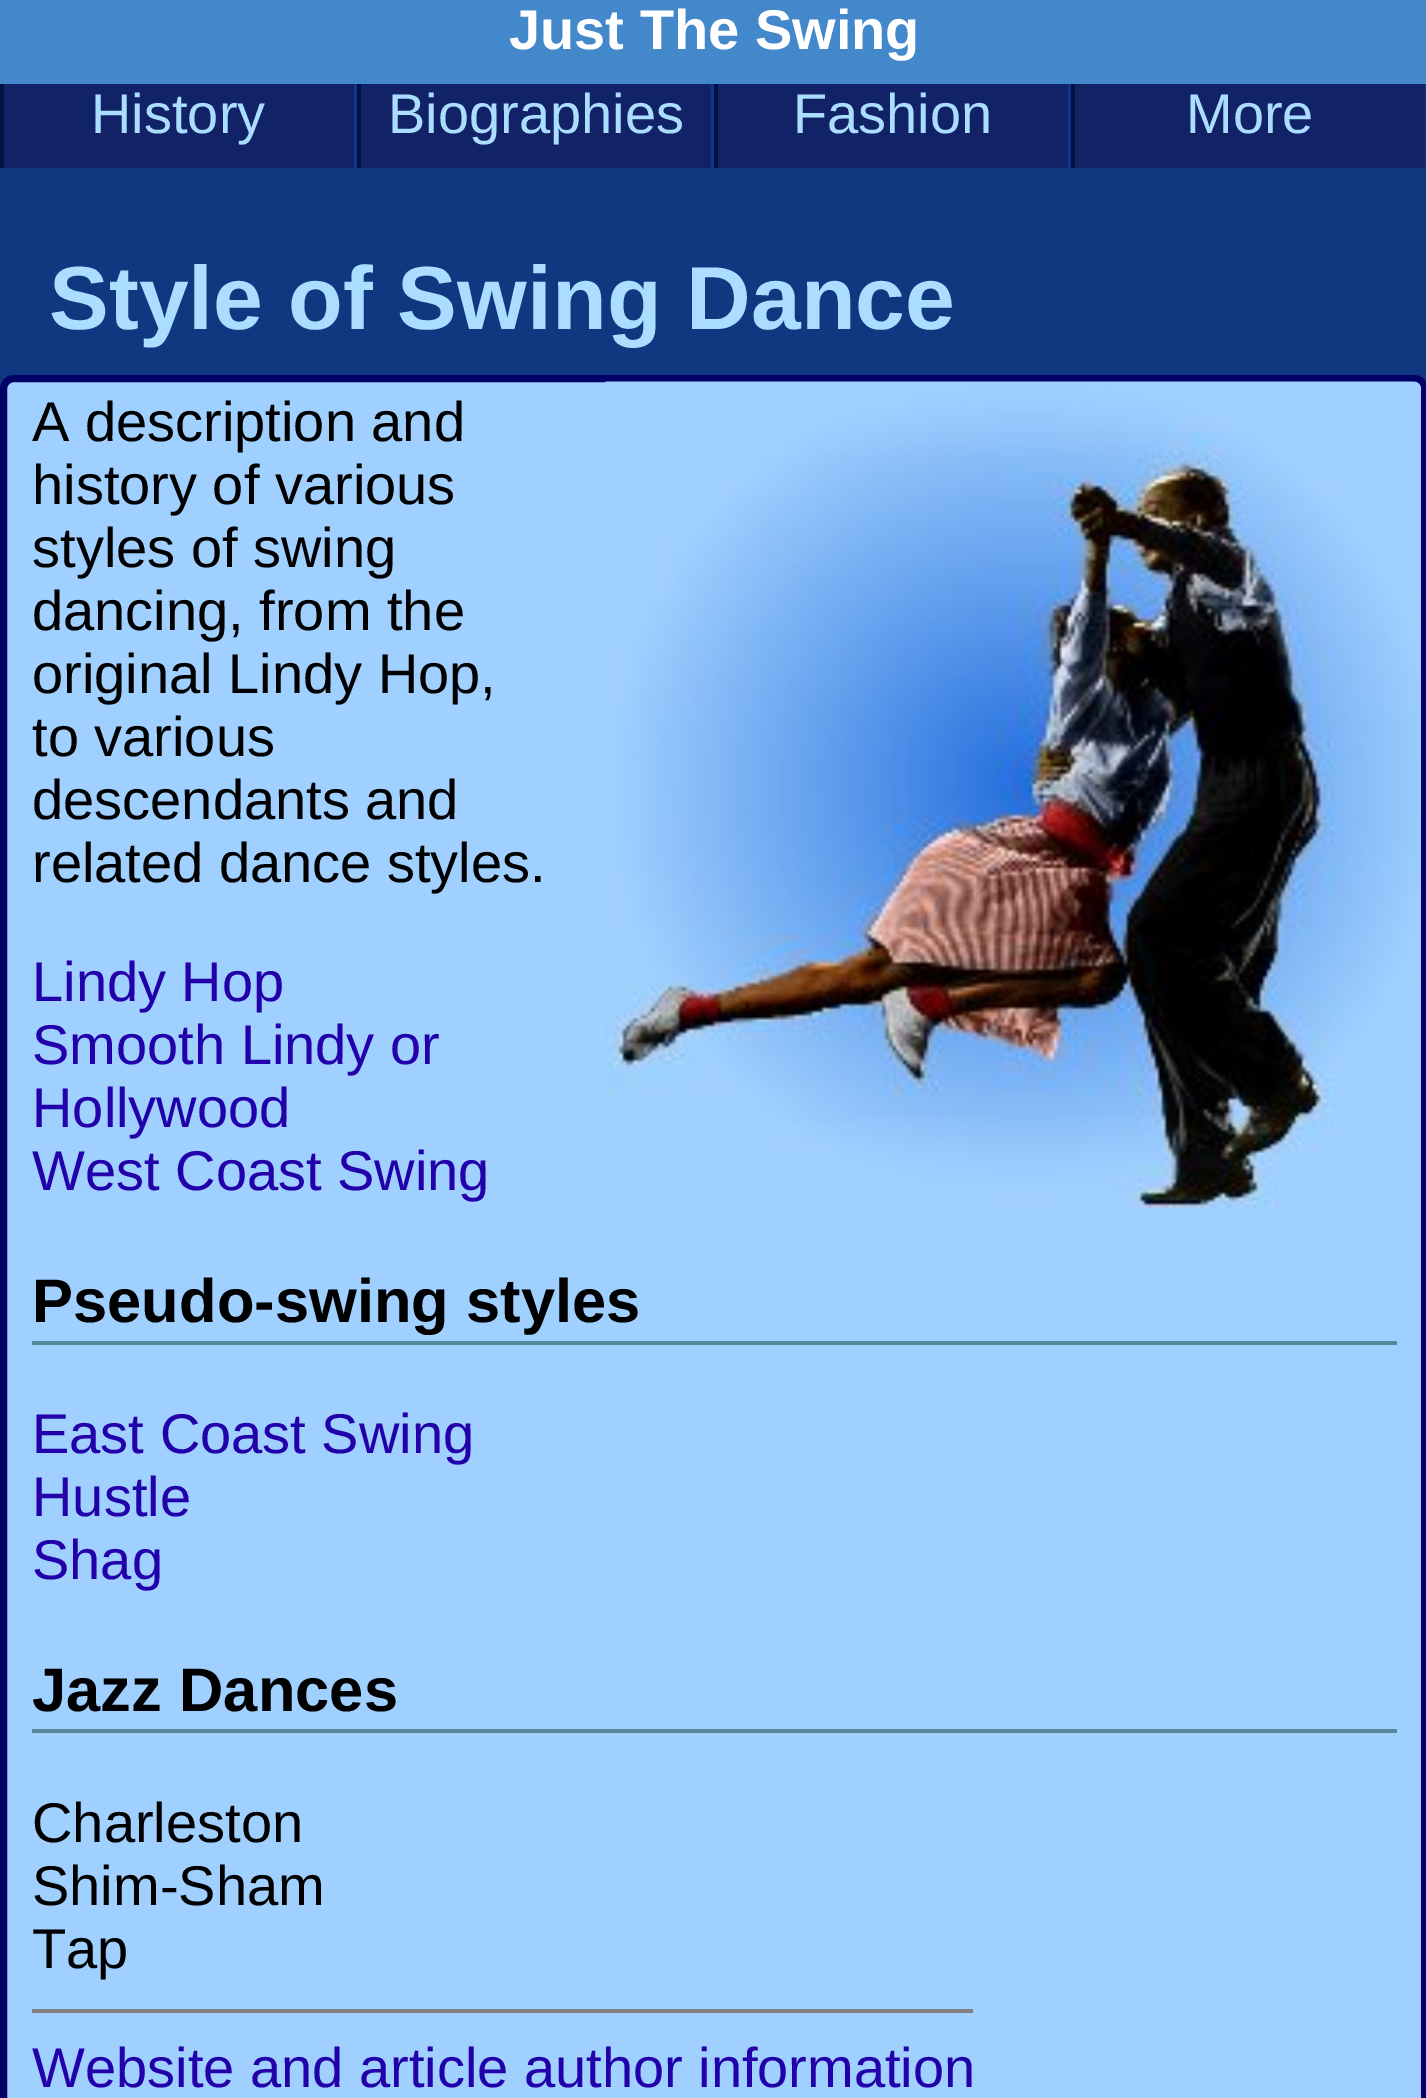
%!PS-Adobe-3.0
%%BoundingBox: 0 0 1426 2098
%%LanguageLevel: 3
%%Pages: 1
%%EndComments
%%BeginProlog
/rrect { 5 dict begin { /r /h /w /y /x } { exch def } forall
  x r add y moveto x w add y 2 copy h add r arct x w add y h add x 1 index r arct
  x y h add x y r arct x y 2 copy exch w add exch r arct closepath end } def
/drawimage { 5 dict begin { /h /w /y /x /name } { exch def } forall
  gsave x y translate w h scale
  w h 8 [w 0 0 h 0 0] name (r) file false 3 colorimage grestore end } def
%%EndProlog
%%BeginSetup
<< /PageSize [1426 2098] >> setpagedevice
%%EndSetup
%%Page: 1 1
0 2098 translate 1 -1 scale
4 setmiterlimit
0.063 0.22 0.502 setrgbcolor
0 0 1426 2098 rectfill
0.067 0.133 0.4 setrgbcolor
4 84 1421 84 rectfill
0.267 0.533 0.8 setrgbcolor
0 0 1426 84 rectfill
0.067 0.2 0.533 setrgbcolor
354 84 3 84 rectfill
0 0.067 0.267 setrgbcolor
0 84 4 84 rectfill
0.067 0.2 0.533 setrgbcolor
711 84 3 84 rectfill
0 0.067 0.267 setrgbcolor
357 84 4 84 rectfill
0.067 0.2 0.533 setrgbcolor
1068 84 3 84 rectfill
0 0.067 0.267 setrgbcolor
714 84 4 84 rectfill
0.067 0.2 0.533 setrgbcolor
1425 84 1 84 rectfill
0 0.067 0.267 setrgbcolor
1071 84 4 84 rectfill
0.627 0.816 1 setrgbcolor
3.5 378.5 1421 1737 10.5 rrect gsave fill grestore
0 0 0.4 setrgbcolor
7 setlinewidth
stroke
(images/1.raw) 605 381 816 827 drawimage
0.333 0.533 0.6 setrgbcolor
32 1341 1365 4 rectfill
32 1729 1365 4 rectfill
0.502 setgray
32 2009 941 4 rectfill
/LiberationSans-Bold [56 0 0 -56 0 0] selectfont
1 setgray
509 49 moveto (Just The Swing) show
/LiberationSans-Regular [56 0 0 -56 0 0] selectfont
0.667 0.867 1 setrgbcolor
91 133 moveto (History) show
388 133 moveto (Biographies) show
793 133 moveto (Fashion) show
1186 133 moveto (More) show
/LiberationSans-Bold [89.6 0 0 -89.6 0 0] selectfont
49 329 moveto (Style of Swing Dance) show
/LiberationSans-Regular [56 0 0 -56 0 0] selectfont
0 setgray
32 441 moveto (A description and) show
32 504 moveto (history of various) show
32 567 moveto (styles of swing) show
32 630 moveto (dancing, from the) show
32 693 moveto (original Lindy Hop,) show
32 756 moveto (to various) show
32 819 moveto (descendants and) show
32 882 moveto (related dance styles.) show
0.133 0 0.667 setrgbcolor
32 1001 moveto (Lindy Hop) show
32 1064 moveto (Smooth Lindy or) show
32 1127 moveto (Hollywood) show
32 1190 moveto (West Coast Swing) show
/LiberationSans-Bold [61.5 0 0 -61.5 0 0] selectfont
0 setgray
32 1322 moveto (Pseudo-swing styles) show
/LiberationSans-Regular [56 0 0 -56 0 0] selectfont
0.133 0 0.667 setrgbcolor
32 1453 moveto (East Coast Swing) show
32 1516 moveto (Hustle) show
32 1579 moveto (Shag) show
/LiberationSans-Bold [61.5 0 0 -61.5 0 0] selectfont
0 setgray
32 1711 moveto (Jazz Dances) show
/LiberationSans-Regular [56 0 0 -56 0 0] selectfont
32 1842 moveto (Charleston) show
32 1905 moveto (Shim-Sham) show
32 1968 moveto (Tap) show
0.133 0 0.667 setrgbcolor
32 2087 moveto (Website and article author information) show
showpage
%%EOF
